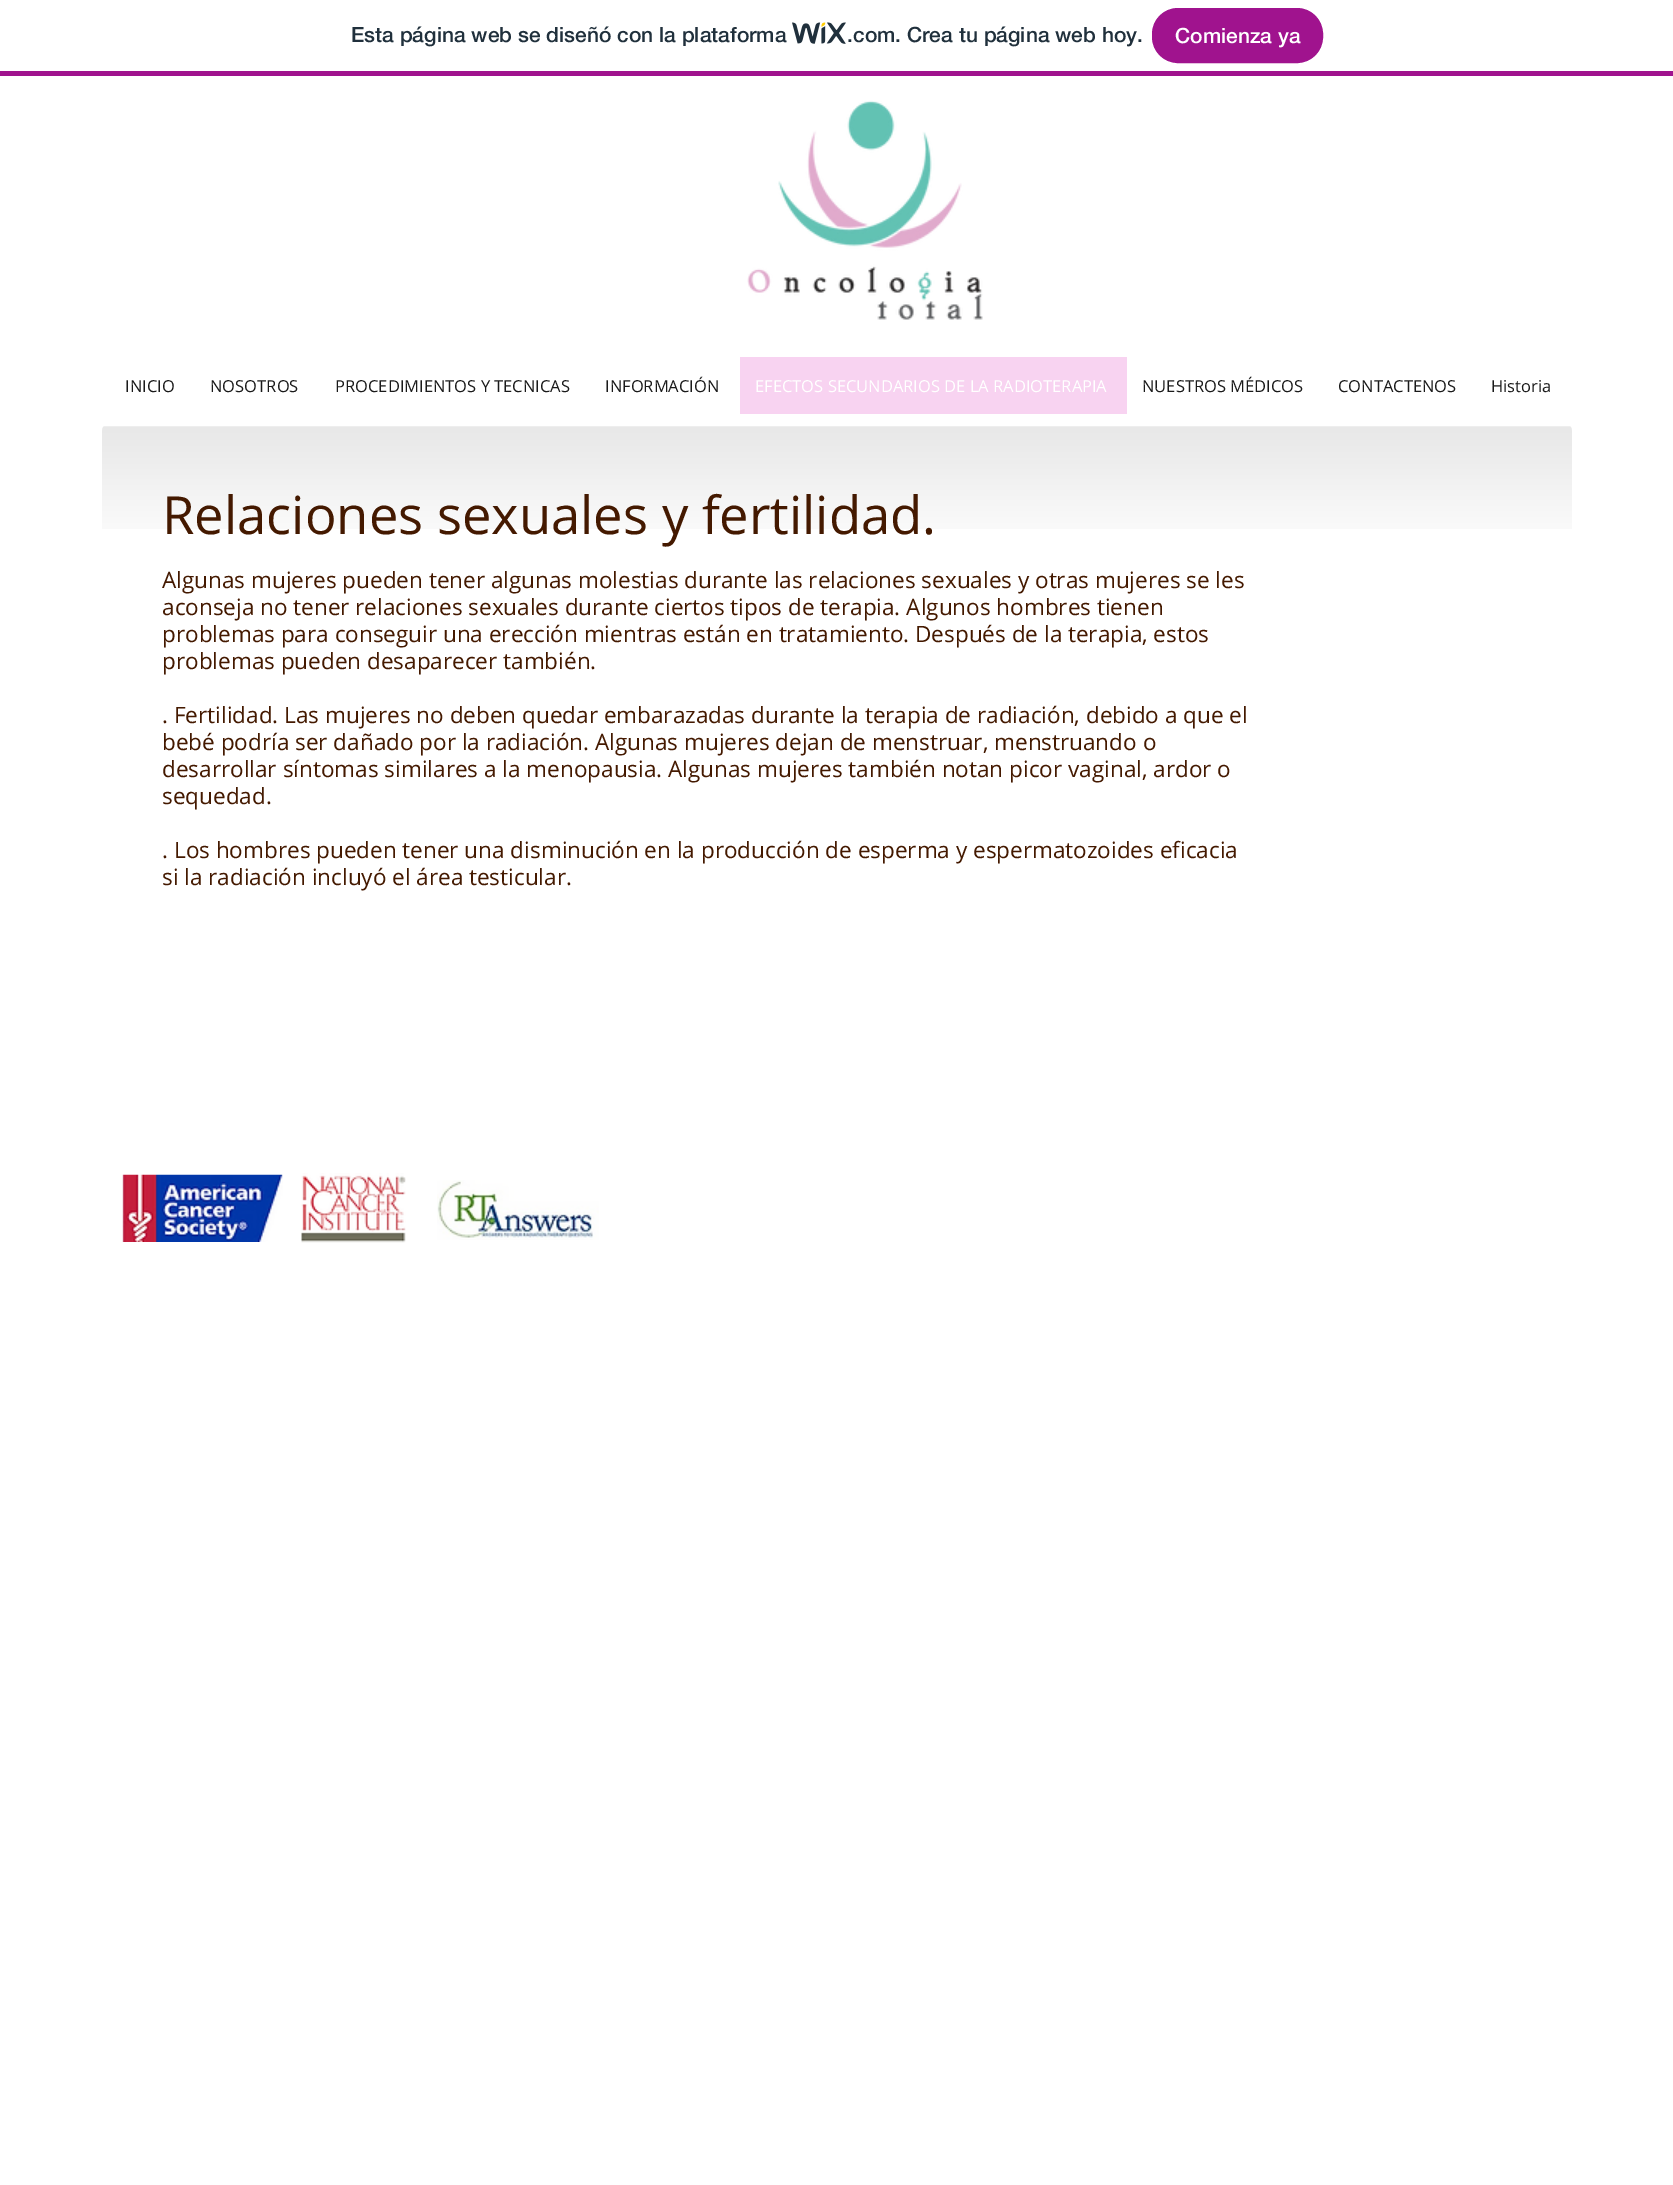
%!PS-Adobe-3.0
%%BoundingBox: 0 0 1673 2185
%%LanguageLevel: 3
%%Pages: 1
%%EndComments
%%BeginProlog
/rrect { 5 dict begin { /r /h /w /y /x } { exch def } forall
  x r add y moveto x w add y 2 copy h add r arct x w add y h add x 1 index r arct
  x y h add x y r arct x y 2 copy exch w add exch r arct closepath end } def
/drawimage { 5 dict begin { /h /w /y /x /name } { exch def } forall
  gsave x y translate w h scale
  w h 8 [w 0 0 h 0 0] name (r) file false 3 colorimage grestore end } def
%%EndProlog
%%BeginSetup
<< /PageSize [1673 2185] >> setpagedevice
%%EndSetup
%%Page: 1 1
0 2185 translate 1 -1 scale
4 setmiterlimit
1 setgray
0 0 1673 2185 rectfill
0.627 0.075 0.557 setrgbcolor
0 71 1673 5 rectfill
(images/1.raw) 792 22 54 22 drawimage
1153 9 169 53 25 rrect gsave fill grestore
2 setlinewidth
stroke
(images/2.raw) 747 100 236 220 drawimage
0.973 0.827 0.945 setrgbcolor
740 357 387 57 rectfill
(images/3.raw) 102 426 1470 103 drawimage
(images/4.raw) 122 1174 161 68 drawimage
(images/5.raw) 301 1173 105 70 drawimage
(images/6.raw) 437 1180 162 60 drawimage
/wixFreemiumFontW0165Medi-Medium [21 0 0 -21 0 0] selectfont
0.125 0.188 0.235 setrgbcolor
351 42 moveto (Esta página web se diseñó con la plataforma) show
847 42 moveto (.com. Crea tu página web hoy.) show
1 setgray
1175 43 moveto (Comienza ya) show
/OpenSans-Regular [16.5 0 0 -16.5 0 0] selectfont
0.102 setgray
125 392 moveto (INICIO) show
210 392 moveto (NOSOTROS) show
335 392 moveto (PROCEDIMIENTOS Y TECNICAS) show
605 392 moveto (INFORMACIÓN) show
1 setgray
755 392 moveto (EFECTOS SECUNDARIOS DE LA RADIOTERAPIA) show
0.102 setgray
1142 392 moveto (NUESTROS MÉDICOS) show
1338 392 moveto (CONTACTENOS) show
1491 392 moveto (Historia) show
/OpenSans-Regular [52.5 0 0 -52.5 0 0] selectfont
0.267 0.098 0 setrgbcolor
162 534 moveto (Relaciones sexuales y fertilidad.) show
/OpenSans-Regular [22.5 0 0 -22.5 0 0] selectfont
162 588 moveto (Algunas mujeres pueden tener algunas molestias durante las relaciones sexuales y otras mujeres se les) show
162 615 moveto (aconseja no tener relaciones sexuales durante ciertos tipos de terapia. Algunos hombres tienen) show
162 642 moveto (problemas para conseguir una erección mientras están en tratamiento. Después de la terapia, estos) show
162 669 moveto (problemas pueden desaparecer también.) show
162 723 moveto (. Fertilidad. Las mujeres no deben quedar embarazadas durante la terapia de radiación, debido a que el) show
162 750 moveto (bebé podría ser dañado por la radiación. Algunas mujeres dejan de menstruar, menstruando o) show
162 777 moveto (desarrollar síntomas similares a la menopausia. Algunas mujeres también notan picor vaginal, ardor o) show
162 804 moveto (sequedad.) show
162 858 moveto (. Los hombres pueden tener una disminución en la producción de esperma y espermatozoides eficacia) show
162 885 moveto (si la radiación incluyó el área testicular.) show
showpage
%%EOF
